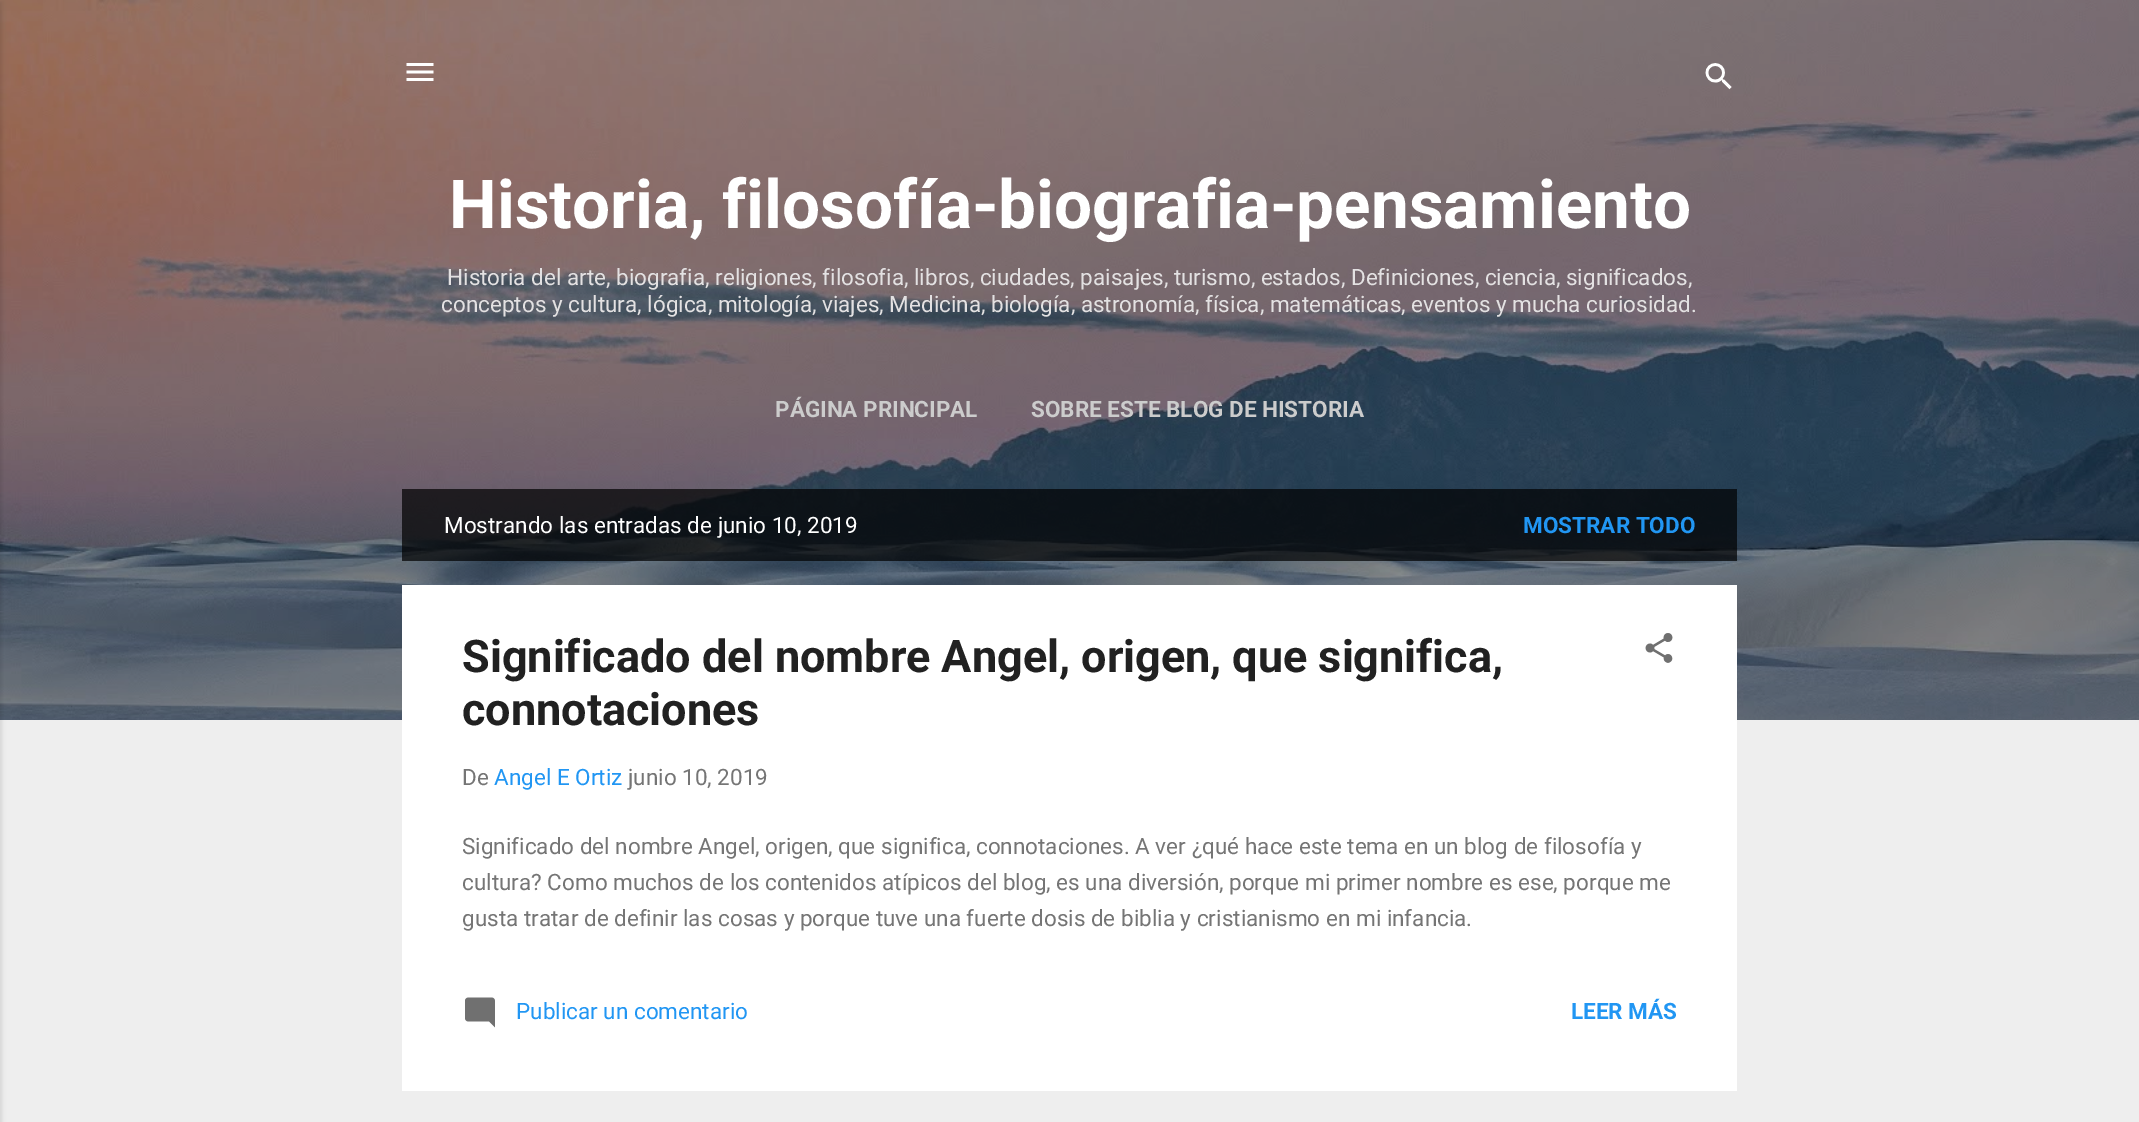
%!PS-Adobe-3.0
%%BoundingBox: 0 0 2139 1122
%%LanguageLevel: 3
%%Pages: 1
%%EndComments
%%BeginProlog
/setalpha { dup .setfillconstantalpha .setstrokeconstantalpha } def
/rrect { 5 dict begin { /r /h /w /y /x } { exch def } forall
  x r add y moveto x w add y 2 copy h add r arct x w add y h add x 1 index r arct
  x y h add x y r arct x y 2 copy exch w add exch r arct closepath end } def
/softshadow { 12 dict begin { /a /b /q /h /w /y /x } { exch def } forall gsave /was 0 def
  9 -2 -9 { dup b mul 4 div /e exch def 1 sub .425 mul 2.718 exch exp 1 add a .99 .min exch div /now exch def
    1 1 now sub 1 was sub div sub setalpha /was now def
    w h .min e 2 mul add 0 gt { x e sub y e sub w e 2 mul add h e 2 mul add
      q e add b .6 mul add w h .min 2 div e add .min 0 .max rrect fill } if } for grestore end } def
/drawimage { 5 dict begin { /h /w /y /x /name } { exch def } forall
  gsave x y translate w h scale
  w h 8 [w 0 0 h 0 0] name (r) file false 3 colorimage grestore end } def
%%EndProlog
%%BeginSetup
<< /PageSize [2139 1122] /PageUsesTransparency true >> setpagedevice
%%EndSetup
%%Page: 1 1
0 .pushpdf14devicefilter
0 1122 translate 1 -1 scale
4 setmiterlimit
0.933 setgray
0 0 2139 1122 rectfill
(images/1.raw) 0 0 2139 720 drawimage
0 setgray
-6 2 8 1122 0 2 0.1 softshadow
(images/2.raw) 406 63 28 18 drawimage
(images/3.raw) 1705 63 27 27 drawimage
0.7 setalpha
402 489 1335 72 rectfill
1 setalpha
1 setgray
402 585 1335 506 rectfill
(images/4.raw) 1645 633 28 30 drawimage
(images/5.raw) 465 997 30 31 drawimage
/Roboto-Bold [67.5 0 0 -67.5 0 0] selectfont
449 228 moveto (Historia, filosofía-biografia-pensamiento) show
/Roboto-Regular [22.5 0 0 -22.5 0 0] selectfont
0.89 0.882 0.886 setrgbcolor
447 285 moveto (Historia del arte, biografia, religiones, filosofia, libros, ciudades, paisajes, turismo, estados, Definiciones, ciencia, significados,) show
441 312 moveto (conceptos y cultura, lógica, mitología, viajes, Medicina, biología, astronomía, física, matemáticas, eventos y mucha curiosidad.) show
/Roboto-Bold [22.5 0 0 -22.5 0 0] selectfont
0.8 setgray
775 417 moveto (PÁGINA PRINCIPAL) show
1031 417 moveto (SOBRE ESTE BLOG DE HISTORIA) show
/Roboto-Regular [22.5 0 0 -22.5 0 0] selectfont
1 setgray
444 533 moveto (Mostrando las entradas de junio 10, 2019) show
/Roboto-Bold [22.5 0 0 -22.5 0 0] selectfont
0.129 0.588 0.953 setrgbcolor
1523 533 moveto (MOSTRAR TODO) show
/Roboto-Bold [45 0 0 -45 0 0] selectfont
0.129 setgray
462 672 moveto (Significado del nombre Angel, origen, que significa,) show
462 725 moveto (connotaciones) show
/Roboto-Regular [22.5 0 0 -22.5 0 0] selectfont
0.459 setgray
462 785 moveto (De) show
0.129 0.588 0.953 setrgbcolor
494 785 moveto (Angel E Ortiz) show
0.459 setgray
628 785 moveto (junio 10, 2019) show
462 854 moveto (Significado del nombre Angel, origen, que significa, connotaciones. A ver ¿qué hace este tema en un blog de filosofía y) show
462 890 moveto (cultura? Como muchos de los contenidos atípicos del blog, es una diversión, porque mi primer nombre es ese, porque me) show
462 926 moveto (gusta tratar de definir las cosas y porque tuve una fuerte dosis de biblia y cristianismo en mi infancia.) show
0.129 0.588 0.953 setrgbcolor
516 1019 moveto (Publicar un comentario) show
/Roboto-Bold [22.5 0 0 -22.5 0 0] selectfont
1571 1019 moveto (LEER MÁS) show
.poppdf14devicefilter showpage
%%EOF
